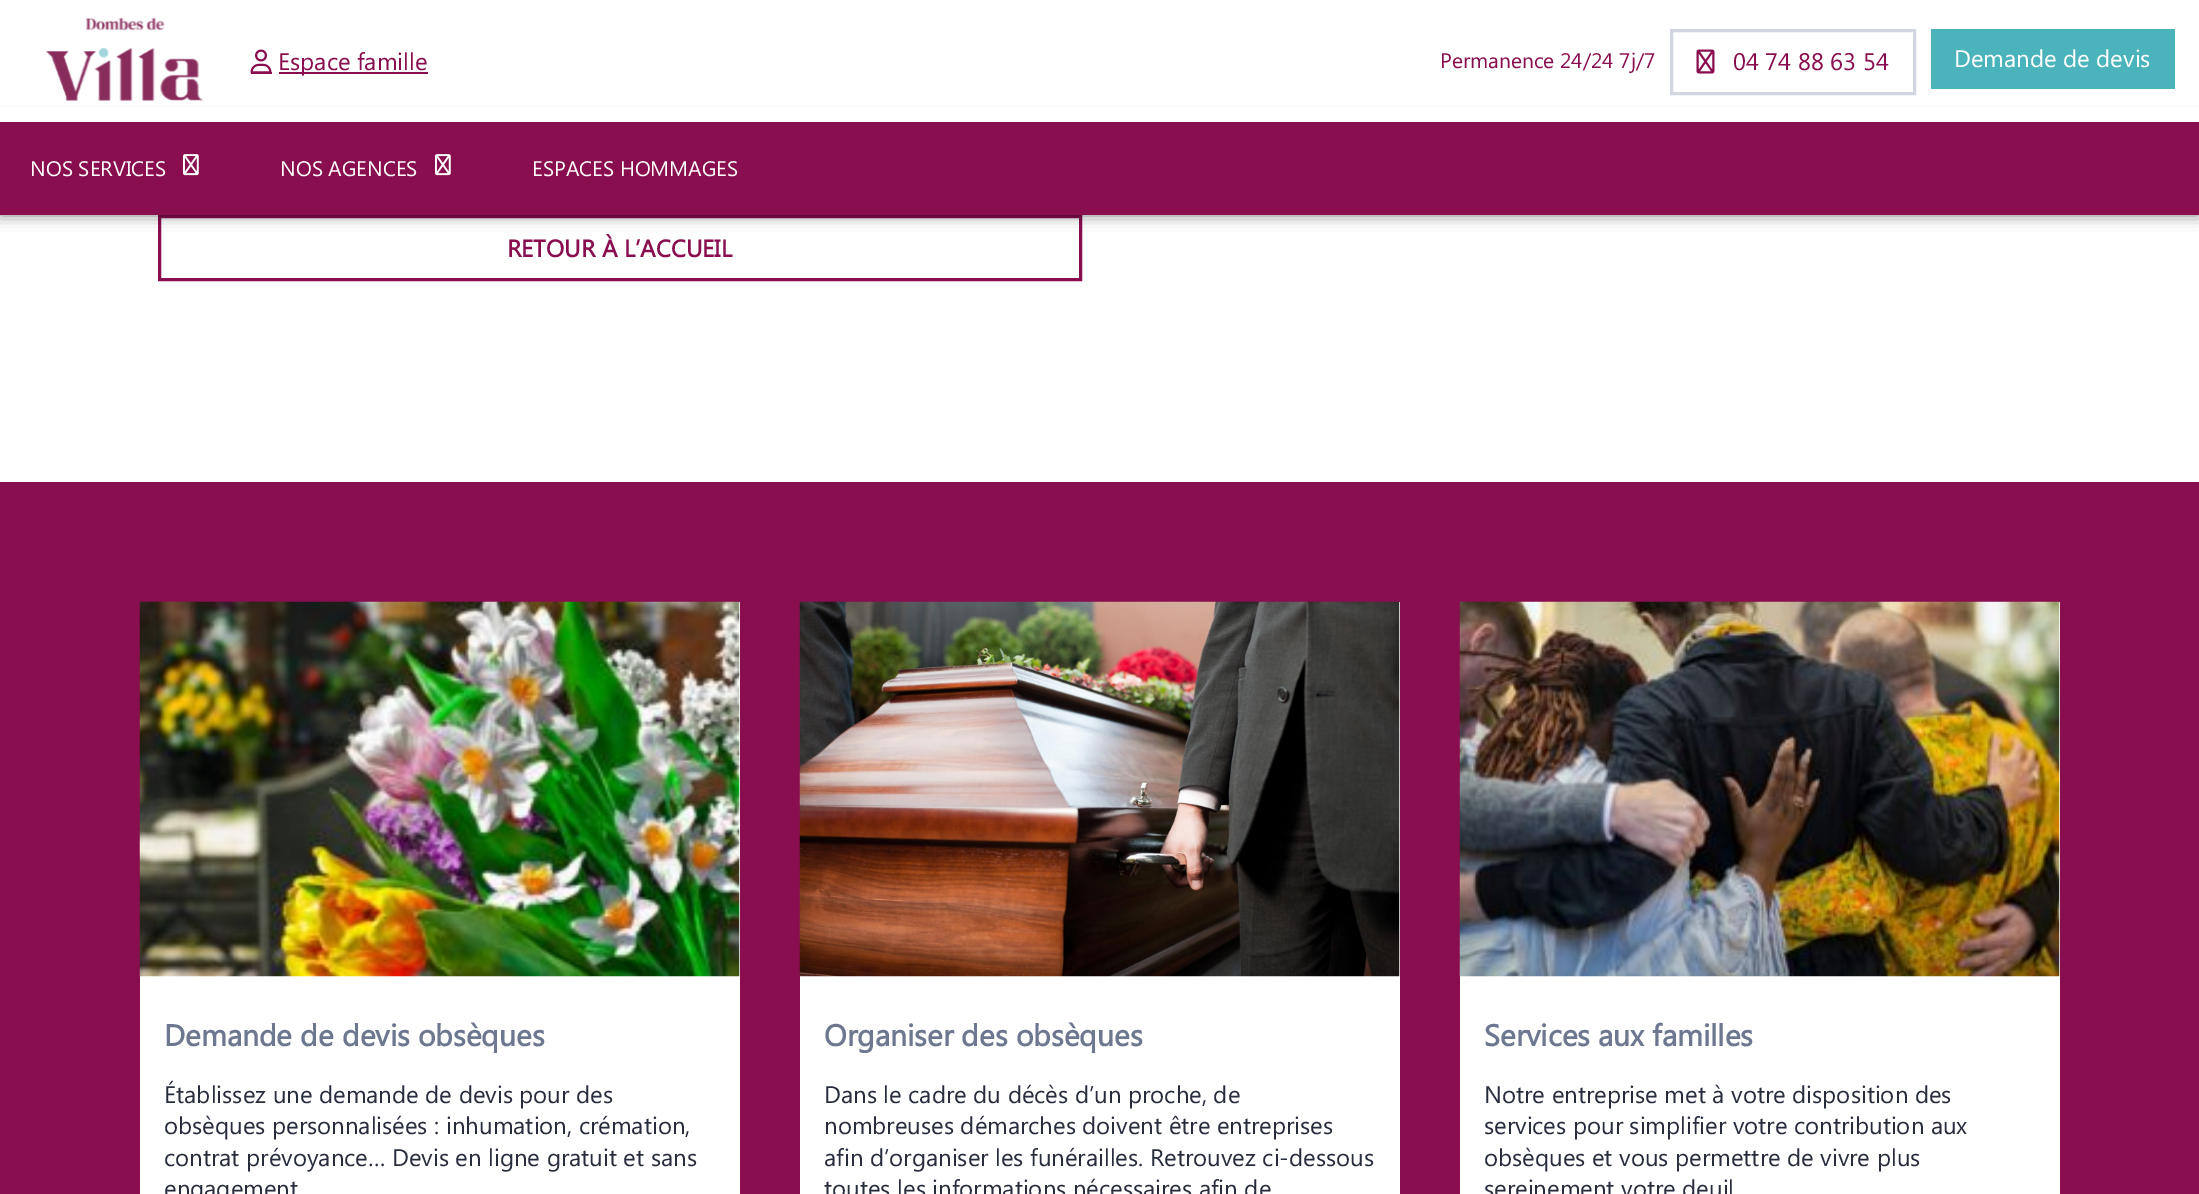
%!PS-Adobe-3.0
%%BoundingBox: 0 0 2199 1194
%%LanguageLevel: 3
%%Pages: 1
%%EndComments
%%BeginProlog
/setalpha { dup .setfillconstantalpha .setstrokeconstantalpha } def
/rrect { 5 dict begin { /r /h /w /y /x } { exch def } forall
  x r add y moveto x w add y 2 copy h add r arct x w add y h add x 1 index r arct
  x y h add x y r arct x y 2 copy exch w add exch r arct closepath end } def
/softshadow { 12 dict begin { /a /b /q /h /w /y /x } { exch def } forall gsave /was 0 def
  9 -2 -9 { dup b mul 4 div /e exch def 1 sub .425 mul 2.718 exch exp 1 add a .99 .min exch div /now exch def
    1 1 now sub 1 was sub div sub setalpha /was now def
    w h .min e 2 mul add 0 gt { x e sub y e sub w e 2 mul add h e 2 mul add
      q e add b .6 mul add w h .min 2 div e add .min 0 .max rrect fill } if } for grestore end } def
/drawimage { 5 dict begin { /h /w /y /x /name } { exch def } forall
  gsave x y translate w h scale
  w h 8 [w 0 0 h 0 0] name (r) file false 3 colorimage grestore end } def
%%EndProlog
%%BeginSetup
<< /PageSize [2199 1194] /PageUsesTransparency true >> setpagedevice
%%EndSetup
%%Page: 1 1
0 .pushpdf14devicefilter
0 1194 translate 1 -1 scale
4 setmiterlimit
1 setgray
0 0 2199 1194 rectfill
0.533 0.055 0.31 setrgbcolor
3 setlinewidth
159.5 216.5 921 63 rectstroke
0 setgray
0 122 2199 93 0 7.5 0.5 softshadow
1 setgray
0 107 2199 15 rectfill
(images/1.raw) 45 17 159 84 drawimage
0.533 0.055 0.31 setrgbcolor
251 72 21 2 rectfill
(images/2.raw) 250 49 22 24 drawimage
279 72 149 2 rectfill
0.824 0.839 0.882 setrgbcolor
1671.5 30.5 243 63 rectstroke
(images/3.raw) 1696 49 19 25 drawimage
0.294 0.702 0.737 setrgbcolor
1931 29 244 60 rectfill
0.533 0.055 0.31 setrgbcolor
0 122 2199 93 rectfill
(images/4.raw) 183 154 16 22 drawimage
(images/4.raw) 435 154 16 22 drawimage
0 482 2199 712 rectfill
1 setgray
140 602 600 592 rectfill
(images/5.raw) 139 601 601 376 drawimage
800 602 600 592 rectfill
(images/6.raw) 799 601 601 376 drawimage
1460 602 600 592 rectfill
(images/7.raw) 1459 601 601 376 drawimage
/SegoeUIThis-Regular [24 0 0 -24 0 0] selectfont
0.533 0.055 0.31 setrgbcolor
278 70 moveto (Espace famille) show
/SegoeUIThis-Regular [21 0 0 -21 0 0] selectfont
1440 68 moveto (Permanence 24/24 7j/7) show
/SegoeUIThis-Regular [24 0 0 -24 0 0] selectfont
1733 70 moveto (04 74 88 63 54) show
1 setgray
1954 67 moveto (Demande de devis) show
/SegoeUIThis-Regular [21 0 0 -21 0 0] selectfont
30 176 moveto (NOS SERVICES) show
280 176 moveto (NOS AGENCES) show
532 176 moveto (ESPACES HOMMAGES) show
/SegoeUIThis-Bold [24 0 0 -24 0 0] selectfont
0.533 0.055 0.31 setrgbcolor
507 257 moveto (RETOUR À L’ACCUEIL) show
/SegoeUIThis-Bold [30 0 0 -30 0 0] selectfont
0.431 0.467 0.565 setrgbcolor
164 1046 moveto (Demande de devis obsèques) show
/SegoeUIThis-Regular [24 0 0 -24 0 0] selectfont
0.157 0.176 0.243 setrgbcolor
164 1103 moveto (Établissez une demande de devis pour des) show
164 1134 moveto (obsèques personnalisées : inhumation, crémation,) show
164 1166 moveto (contrat prévoyance… Devis en ligne gratuit et sans) show
164 1197 moveto (engagement) show
/SegoeUIThis-Bold [30 0 0 -30 0 0] selectfont
0.431 0.467 0.565 setrgbcolor
824 1046 moveto (Organiser des obsèques) show
/SegoeUIThis-Regular [24 0 0 -24 0 0] selectfont
0.157 0.176 0.243 setrgbcolor
824 1103 moveto (Dans le cadre du décès d’un proche, de) show
824 1134 moveto (nombreuses démarches doivent être entreprises) show
824 1166 moveto (afin d’organiser les funérailles. Retrouvez ci-dessous) show
824 1197 moveto (toutes les informations nécessaires afin de) show
/SegoeUIThis-Bold [30 0 0 -30 0 0] selectfont
0.431 0.467 0.565 setrgbcolor
1484 1046 moveto (Services aux familles) show
/SegoeUIThis-Regular [24 0 0 -24 0 0] selectfont
0.157 0.176 0.243 setrgbcolor
1484 1103 moveto (Notre entreprise met à votre disposition des) show
1484 1134 moveto (services pour simplifier votre contribution aux) show
1484 1166 moveto (obsèques et vous permettre de vivre plus) show
1484 1197 moveto (sereinement votre deuil) show
.poppdf14devicefilter showpage
%%EOF
